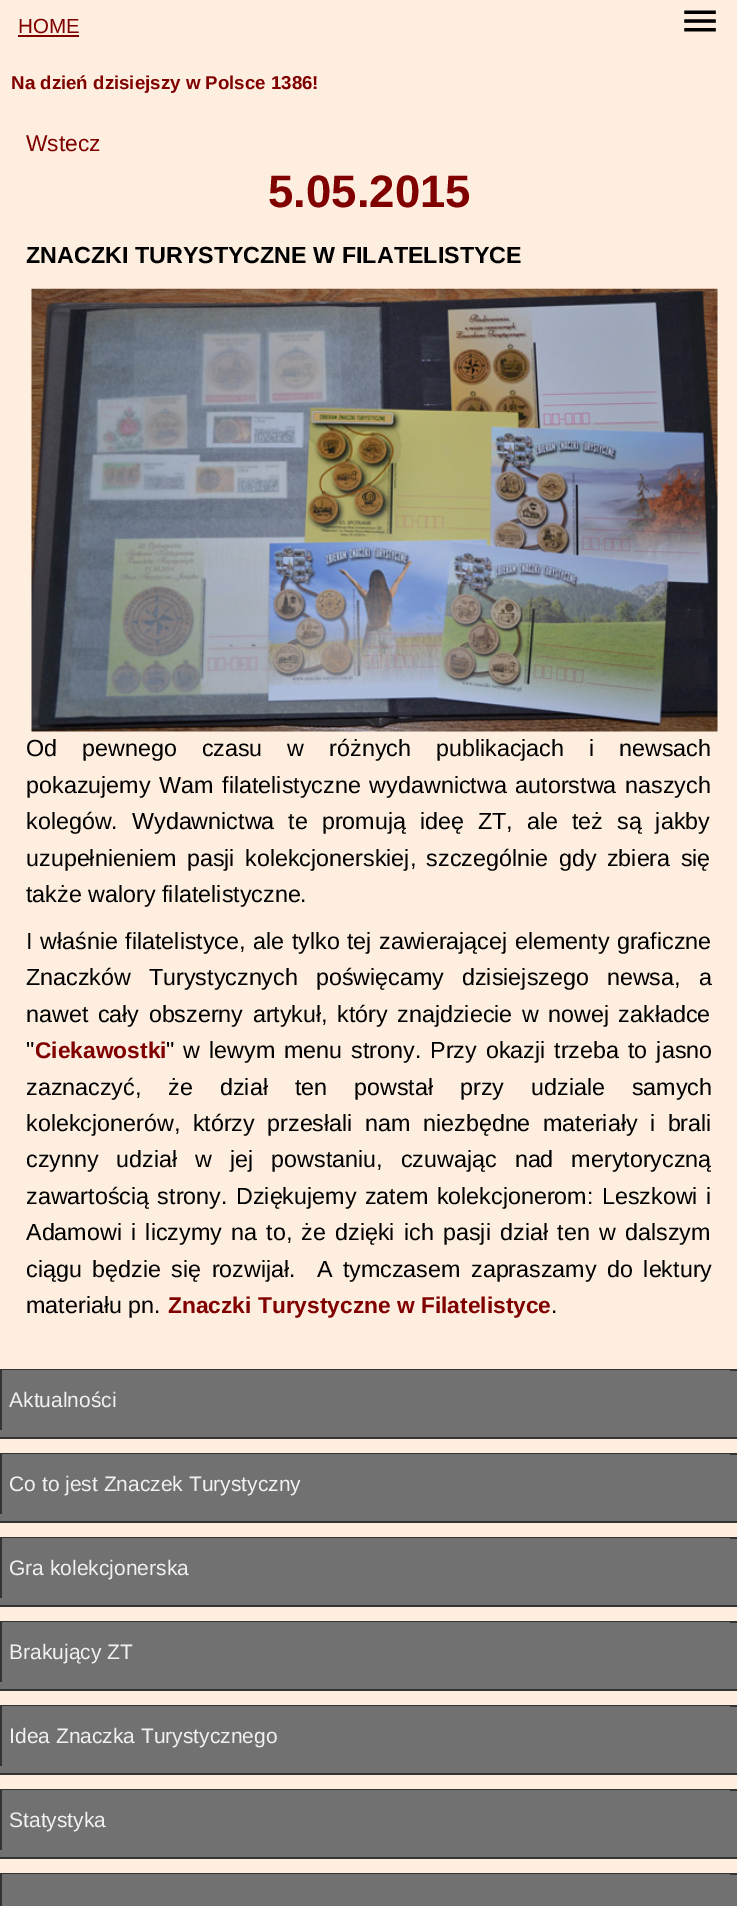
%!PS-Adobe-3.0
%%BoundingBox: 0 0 737 1906
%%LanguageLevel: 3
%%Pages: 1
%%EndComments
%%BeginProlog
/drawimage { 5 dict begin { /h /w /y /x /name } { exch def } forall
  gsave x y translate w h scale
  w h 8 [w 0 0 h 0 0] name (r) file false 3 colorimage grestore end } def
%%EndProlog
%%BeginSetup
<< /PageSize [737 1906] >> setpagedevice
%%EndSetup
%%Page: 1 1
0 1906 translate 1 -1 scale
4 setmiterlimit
0.996 0.933 0.875 setrgbcolor
0 0 737 1906 rectfill
0.502 0 0 setrgbcolor
18 35 61 2 rectfill
(images/1.raw) 684 10 32 22 drawimage
(images/2.raw) 31 288 687 444 drawimage
0.447 0.443 0.443 setrgbcolor
0 1371 737 66 rectfill
0.2 setgray
0 1369 737 2 rectfill
0 1437 737 2 rectfill
0.447 0.443 0.443 setrgbcolor
2 1370 728 1 rectfill
0.2 setgray
0 1370 2 60 rectfill
0.447 0.443 0.443 setrgbcolor
0 1455 737 66 rectfill
0.2 setgray
0 1453 737 2 rectfill
0 1521 737 2 rectfill
0.447 0.443 0.443 setrgbcolor
2 1454 728 1 rectfill
0.2 setgray
0 1454 2 60 rectfill
0.447 0.443 0.443 setrgbcolor
0 1539 737 66 rectfill
0.2 setgray
0 1537 737 2 rectfill
0 1605 737 2 rectfill
0.447 0.443 0.443 setrgbcolor
2 1538 728 1 rectfill
0.2 setgray
0 1538 2 60 rectfill
0.447 0.443 0.443 setrgbcolor
0 1623 737 66 rectfill
0.2 setgray
0 1621 737 2 rectfill
0 1689 737 2 rectfill
0.447 0.443 0.443 setrgbcolor
2 1622 728 1 rectfill
0.2 setgray
0 1622 2 60 rectfill
0.447 0.443 0.443 setrgbcolor
0 1707 737 66 rectfill
0.2 setgray
0 1705 737 2 rectfill
0 1773 737 2 rectfill
0.447 0.443 0.443 setrgbcolor
2 1706 728 1 rectfill
0.2 setgray
0 1706 2 60 rectfill
0.447 0.443 0.443 setrgbcolor
0 1791 737 66 rectfill
0.2 setgray
0 1789 737 2 rectfill
0 1857 737 2 rectfill
0.447 0.443 0.443 setrgbcolor
2 1790 728 1 rectfill
0.2 setgray
0 1790 2 60 rectfill
0.447 0.443 0.443 setrgbcolor
730 1875 7 31 rectfill
0.2 setgray
0 1873 737 2 rectfill
0.447 0.443 0.443 setrgbcolor
2 1874 728 32 rectfill
0.2 setgray
0 1874 2 32 rectfill
/LiberationSans-Regular [20.5 0 0 -20.5 0 0] selectfont
0.502 0 0 setrgbcolor
18 33 moveto (HOME) show
/LiberationSans-Bold [18.7 0 0 -18.7 0 0] selectfont
11 89 moveto (Na dzień dzisiejszy w Polsce 1386!) show
/LiberationSans-Regular [22.75 0 0 -22.75 0 0] selectfont
26 151 moveto (Wstecz) show
/LiberationSans-Bold [45.5 0 0 -45.5 0 0] selectfont
268 207 moveto (5.05.2015) show
/LiberationSans-Bold [23.3 0 0 -23.3 0 0] selectfont
0 setgray
26 263 moveto (ZNACZKI TURYSTYCZNE W FILATELISTYCE) show
/LiberationSans-Regular [23.3 0 0 -23.3 0 0] selectfont
26 756 moveto 18.5 0 32 (Od pewnego czasu w różnych publikacjach i newsach) widthshow
26 793 moveto 2.25 0 32 (pokazujemy Wam filatelistyczne wydawnictwa autorstwa naszych) widthshow
26 829 moveto 7.5 0 32 (kolegów. Wydawnictwa te promują ideę ZT, ale też są jakby) widthshow
26 866 moveto 4 0 32 (uzupełnieniem pasji kolekcjonerskiej, szczególnie gdy zbiera się) widthshow
26 902 moveto (także walory filatelistyczne.) show
26 949 moveto 1 0 32 (I właśnie filatelistyce, ale tylko tej zawierającej elementy graficzne) widthshow
26 985 moveto 11.5 0 32 (Znaczków Turystycznych poświęcamy dzisiejszego newsa, a) widthshow
26 1022 moveto 3 0 32 (nawet cały obszerny artykuł, który znajdziecie w nowej zakładce) widthshow
26 1058 moveto (") show
/LiberationSans-Bold [22.75 0 0 -22.75 0 0] selectfont
0.502 0 0 setrgbcolor
35 1058 moveto (Ciekawostki) show
/LiberationSans-Regular [23.3 0 0 -23.3 0 0] selectfont
0 setgray
166 1058 moveto 2.5 0 32 (" w lewym menu strony. Przy okazji trzeba to jasno) widthshow
26 1095 moveto 20.5 0 32 (zaznaczyć, że dział ten powstał przy udziale samych) widthshow
26 1131 moveto 6 0 32 (kolekcjonerów, którzy przesłali nam niezbędne materiały i brali) widthshow
26 1167 moveto 11.5 0 32 (czynny udział w jej powstaniu, czuwając nad merytoryczną) widthshow
26 1204 moveto 2 0 32 (zawartością strony. Dziękujemy zatem kolekcjonerom: Leszkowi i) widthshow
26 1240 moveto 2.75 0 32 (Adamowi i liczymy na to, że dzięki ich pasji dział ten w dalszym) widthshow
26 1277 moveto 4 0 32 (ciągu będzie się rozwijał.  A tymczasem zapraszamy do lektury) widthshow
26 1313 moveto (materiału pn.) show
/LiberationSans-Bold [22.75 0 0 -22.75 0 0] selectfont
0.502 0 0 setrgbcolor
168 1313 moveto (Znaczki Turystyczne w Filatelistyce) show
/LiberationSans-Regular [23.3 0 0 -23.3 0 0] selectfont
0 setgray
551 1313 moveto (.) show
/LiberationSans-Regular [21 0 0 -21 0 0] selectfont
0.945 setgray
9 1407 moveto (Aktualności) show
9 1491 moveto (Co to jest Znaczek Turystyczny) show
9 1575 moveto (Gra kolekcjonerska) show
9 1659 moveto (Brakujący ZT) show
9 1743 moveto (Idea Znaczka Turystycznego) show
9 1827 moveto (Statystyka) show
showpage
%%EOF
